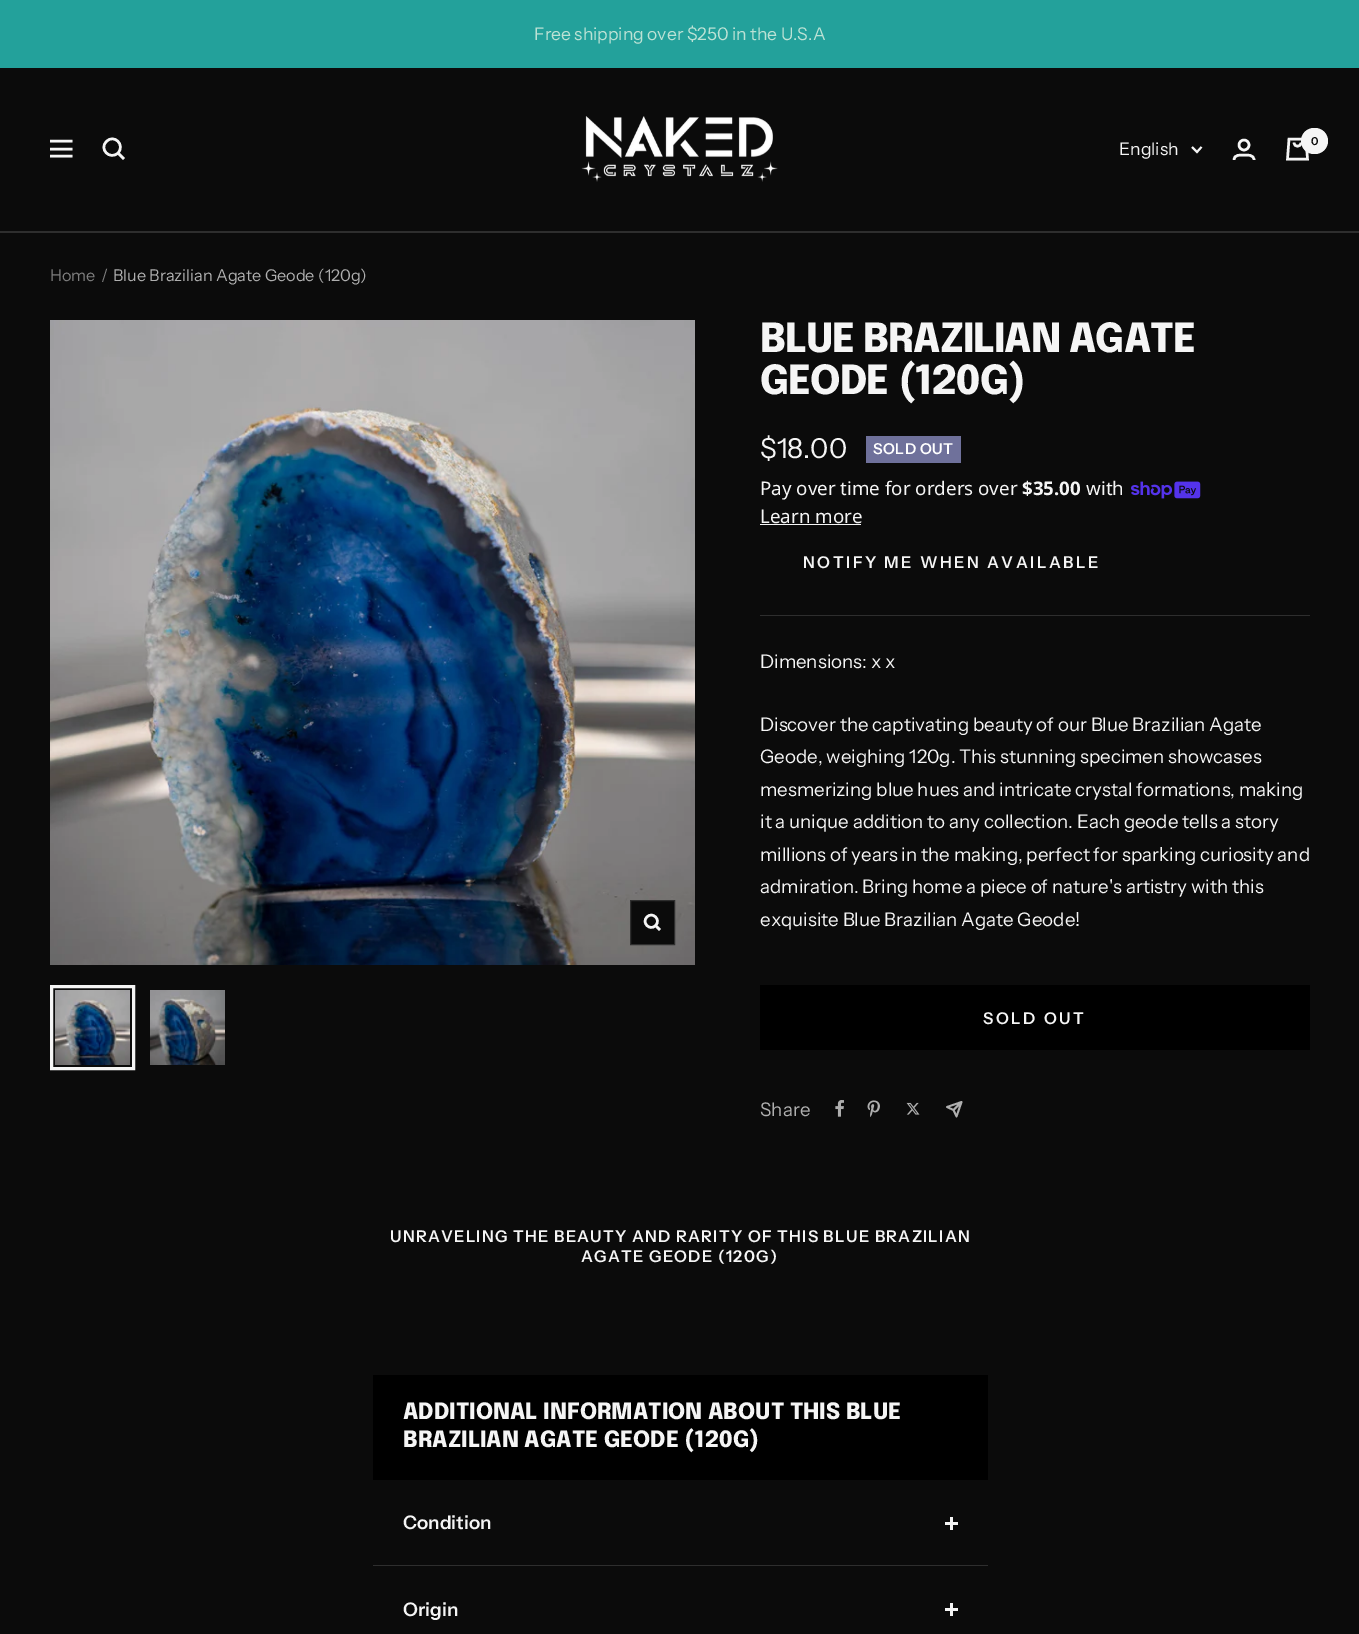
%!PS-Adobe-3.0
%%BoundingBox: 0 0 1359 1634
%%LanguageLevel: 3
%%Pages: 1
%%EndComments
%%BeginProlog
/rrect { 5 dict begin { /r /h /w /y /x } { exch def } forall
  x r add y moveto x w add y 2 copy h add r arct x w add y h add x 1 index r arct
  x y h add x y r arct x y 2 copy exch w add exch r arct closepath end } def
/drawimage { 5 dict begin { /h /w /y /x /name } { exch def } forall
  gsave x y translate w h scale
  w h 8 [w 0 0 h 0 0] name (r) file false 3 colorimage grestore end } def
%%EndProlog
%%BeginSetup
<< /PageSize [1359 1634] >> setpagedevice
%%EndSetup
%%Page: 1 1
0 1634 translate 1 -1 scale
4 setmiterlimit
0.043 setgray
0 0 1359 1634 rectfill
0.137 0.631 0.608 setrgbcolor
0 0 1359 68 rectfill
0.18 setgray
0 231 1359 2 rectfill
0.961 setgray
2.5 setlinewidth
newpath 50 141 moveto 72.5 141 lineto 50 156 moveto 72.5 156 lineto closepath 50 149 moveto 72.5 149 lineto closepath stroke
newpath 118 153 moveto 125.5 145 114 133.5 106.5 141.5 curveto 98.5 149 110 160.5 118 153 curveto closepath 118 153 moveto 124 159 lineto stroke
(images/1.raw) 581 116 197 66 drawimage
newpath 1244 145 5 0 360 arc closepath stroke
newpath 1234 160 moveto 1234 154.5 1240 155 1244 155 curveto 1247.5 155 1254 154.5 1254 160 curveto stroke
newpath 1289 139 moveto 1306 139 lineto 1307.5 159 lineto 1287.5 159 lineto closepath 1294 142.5 moveto 1294 147.5 1301 147.5 1301 142.5 curveto stroke
1301 128 27 26 13 rrect fill
1.9 setlinewidth
newpath 1192 147 moveto 1197 152 lineto 1201.5 147 lineto stroke
(images/2.raw) 50 320 645 645 drawimage
0.043 setgray
newpath 630.5 900.5 moveto 674.5 900.5 lineto 674.5 944.5 lineto 630.5 944.5 lineto closepath gsave fill grestore
0.18 setgray
1 setlinewidth
stroke
0.961 setgray
2.5 setlinewidth
newpath 655.5 925.5 moveto 661.5 920 652.5 911 647 917 curveto 641 922.5 650 931.5 655.5 925.5 curveto closepath 655.5 925.5 moveto 660 930 lineto stroke
(images/3.raw) 55 990 75 75 drawimage
3 setlinewidth
51.5 986.5 82 82 rectstroke
(images/4.raw) 150 990 75 75 drawimage
0.18 setgray
760 615 550 1 rectfill
0.435 0.443 0.608 setrgbcolor
866 436 95 27 rectfill
(images/5.raw) 1131 481 70 18 drawimage
0.961 setgray
760 524 101 1 rectfill
0 setgray
760 985 550 65 rectfill
(images/6.raw) 835 1100 9 17 drawimage
(images/7.raw) 867 1100 13 17 drawimage
(images/8.raw) 906 1102 14 13 drawimage
0.686 setgray
1.8 setlinewidth
1 setlinecap
1 setlinejoin
newpath 961.5 1102 moveto 956.5 1116.5 lineto 953.5 1110 lineto 961.5 1102 moveto 947 1107 lineto 953.5 1110 lineto 961.5 1102 moveto 953.5 1110 lineto stroke
0 setgray
373 1375 615 105 rectfill
0.961 setgray
950 1517 3 13 rectfill
945 1522 13 3 rectfill
0.18 setgray
373 1565 615 1 rectfill
0.961 setgray
950 1603 3 13 rectfill
945 1608 13 3 rectfill
/InstrumentSans-Regular [17.5 0 0 -17.5 0 0] selectfont
0.737 0.886 0.835 setrgbcolor
534 40 moveto (Free shipping over $250 in the U.S.A) show
/InstrumentSans-SemiBold [11 0 0 -11 0 0] selectfont
0.043 setgray
1311 145 moveto (0) show
/InstrumentSans-Regular [17.5 0 0 -17.5 0 0] selectfont
0.961 setgray
1119 155 moveto (English) show
/InstrumentSans-Regular [16.25 0 0 -16.25 0 0] selectfont
0.494 setgray
50 281 moveto (Home) show
101 281 moveto (/) show
0.686 setgray
113 281 moveto (Blue Brazilian Agate Geode \(120g\)) show
/Epilogue-ExtraBold [40 0 0 -40 0 0] selectfont
0.961 setgray
760 352 moveto -1 0 (BLUE BRAZILIAN AGATE) ashow
760 394 moveto -1 0 (GEODE \(120G\)) ashow
/InstrumentSans-Regular [27.5 0 0 -27.5 0 0] selectfont
760 458 moveto ($18.00) show
/InstrumentSans-SemiBold [15 0 0 -15 0 0] selectfont
1 setgray
873 454 moveto 0.5 0 (SOLD OUT) ashow
/NotoSans-Regular [18.75 0 0 -18.75 0 0] selectfont
0.961 setgray
760 495 moveto (Pay over time for orders over) show
/NotoSans-Bold [18.75 0 0 -18.75 0 0] selectfont
1022 495 moveto ($35.00) show
/NotoSans-Regular [18.75 0 0 -18.75 0 0] selectfont
1086 495 moveto (with) show
760 523 moveto (Learn more) show
/InstrumentSans-SemiBold [16.25 0 0 -16.25 0 0] selectfont
803 568 moveto 2.5 0 (NOTIFY ME WHEN AVAILABLE) ashow
/InstrumentSans-Regular [18.75 0 0 -18.75 0 0] selectfont
760 668 moveto (Dimensions: x x) show
760 731 moveto (Discover the captivating beauty of our Blue Brazilian Agate) show
760 763 moveto (Geode, weighing 120g. This stunning specimen showcases) show
760 796 moveto (mesmerizing blue hues and intricate crystal formations, making) show
760 828 moveto (it a unique addition to any collection. Each geode tells a story) show
760 861 moveto (millions of years in the making, perfect for sparking curiosity and) show
760 893 moveto (admiration. Bring home a piece of nature's artistry with this) show
760 926 moveto (exquisite Blue Brazilian Agate Geode!) show
/InstrumentSans-SemiBold [16.25 0 0 -16.25 0 0] selectfont
983 1024 moveto 2.5 0 (SOLD OUT) ashow
/InstrumentSans-Regular [18.75 0 0 -18.75 0 0] selectfont
0.686 setgray
760 1116 moveto (Share) show
/InstrumentSans-SemiBold [16.25 0 0 -16.25 0 0] selectfont
0.961 setgray
390 1242 moveto 1.25 0 (UNRAVELING THE BEAUTY AND RARITY OF THIS BLUE BRAZILIAN) ashow
581 1262 moveto 1.25 0 (AGATE GEODE \(120G\)) ashow
/Epilogue-ExtraBold [22.5 0 0 -22.5 0 0] selectfont
403 1419 moveto (ADDITIONAL INFORMATION ABOUT THIS BLUE) show
403 1447 moveto (BRAZILIAN AGATE GEODE \(120G\)) show
/InstrumentSans-SemiBold [18.75 0 0 -18.75 0 0] selectfont
403 1529 moveto (Condition) show
403 1616 moveto (Origin) show
showpage
%%EOF
